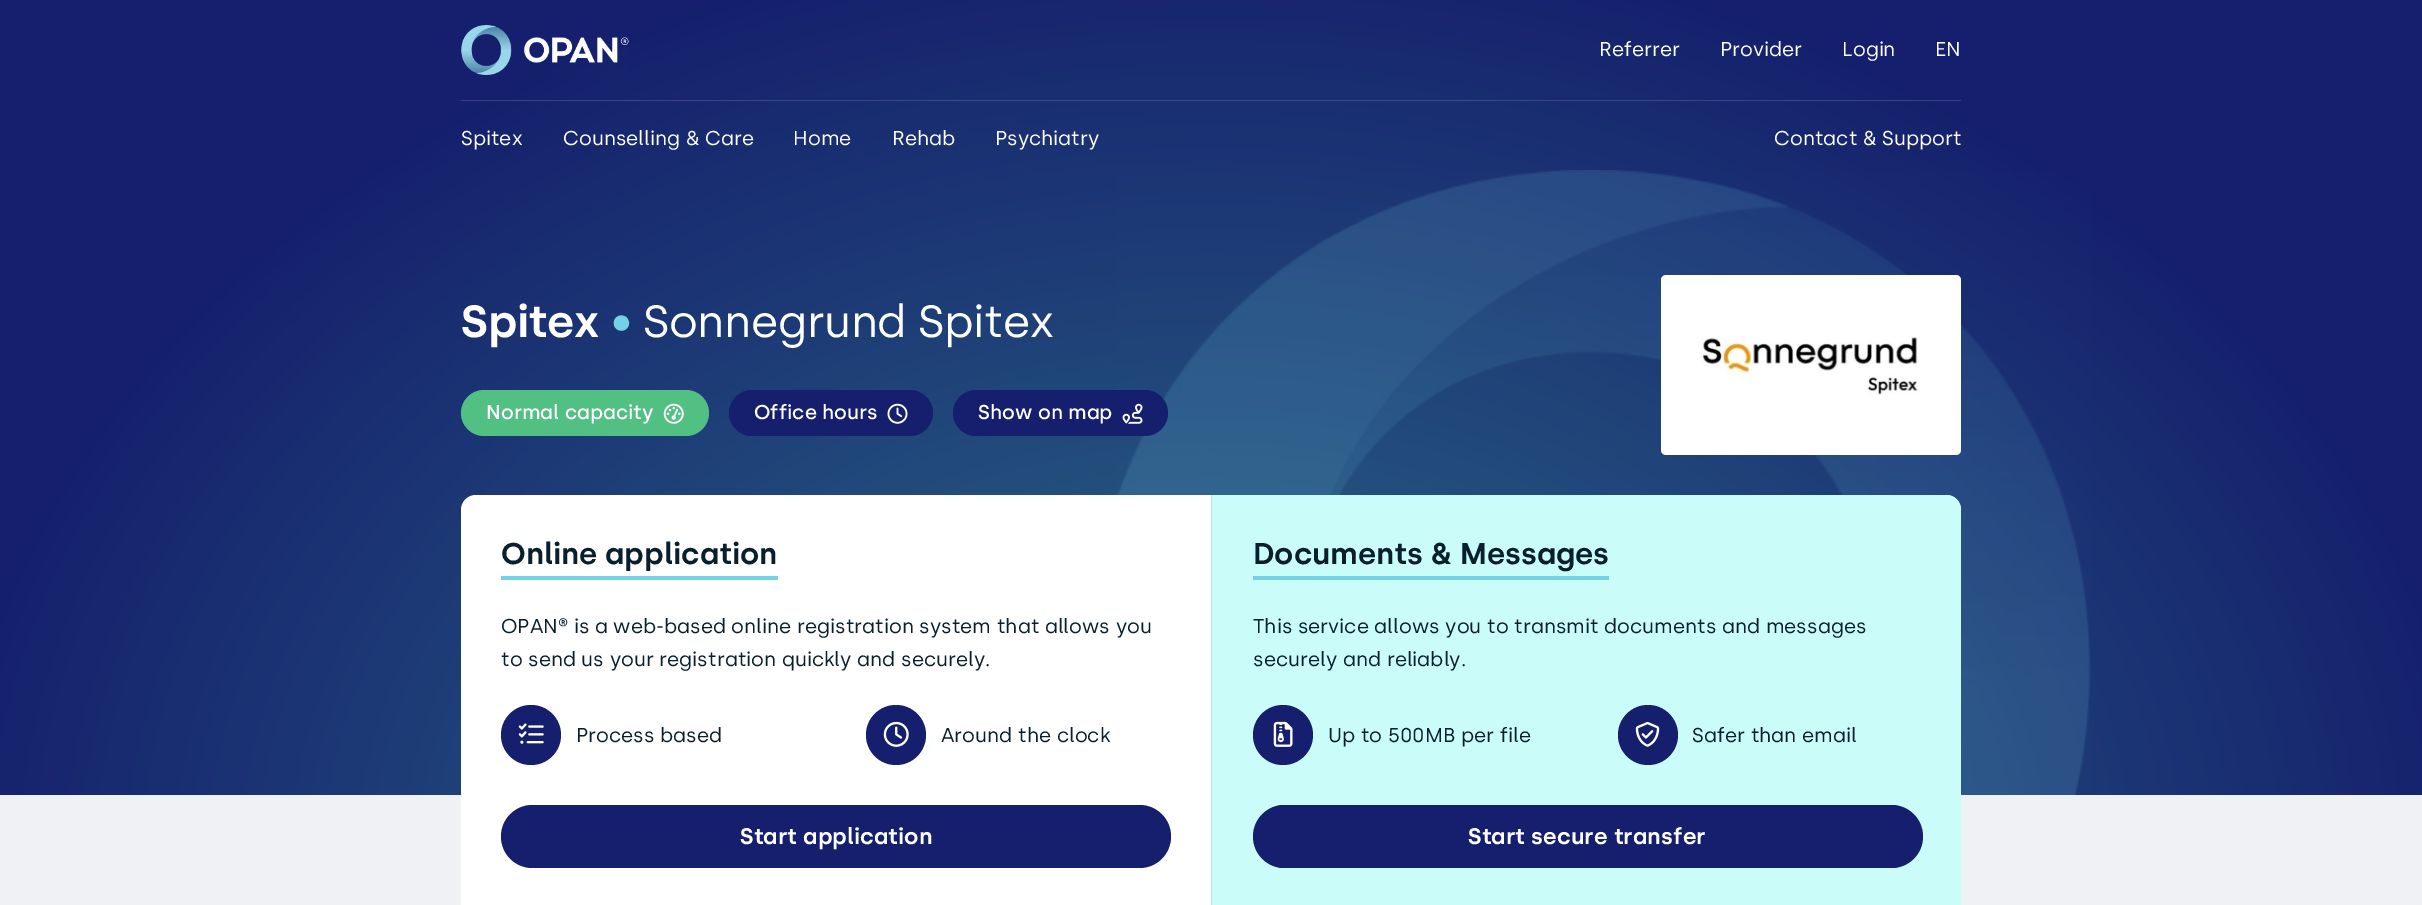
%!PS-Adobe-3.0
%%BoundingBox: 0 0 2422 905
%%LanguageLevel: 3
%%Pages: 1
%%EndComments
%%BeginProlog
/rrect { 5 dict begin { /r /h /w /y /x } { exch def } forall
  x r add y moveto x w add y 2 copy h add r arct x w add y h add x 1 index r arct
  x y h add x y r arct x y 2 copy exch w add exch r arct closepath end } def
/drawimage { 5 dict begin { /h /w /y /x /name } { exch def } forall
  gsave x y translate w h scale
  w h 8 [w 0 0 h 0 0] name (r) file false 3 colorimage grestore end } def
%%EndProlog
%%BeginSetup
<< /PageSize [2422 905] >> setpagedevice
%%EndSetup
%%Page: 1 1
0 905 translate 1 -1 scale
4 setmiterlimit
0.941 0.945 0.961 setrgbcolor
0 0 2422 905 rectfill
gsave newpath 0 0 moveto 2422 0 lineto 2422 795 lineto 0 795 lineto closepath clip newpath 1211 875 translate 1713 1280 scale
<< /ShadingType 3 /ColorSpace /DeviceRGB /Coords [0 0 0 0 0 1] /Extend [true true] /Function << /FunctionType 3 /Domain [0 1] /Functions [<< /FunctionType 2 /Domain [0 1] /C0 [0.176 0.439 0.529] /C1 [0.082 0.122 0.427] /N 1 >> << /FunctionType 2 /Domain [0 1] /C0 [0.082 0.122 0.427] /C1 [0.082 0.122 0.427] /N 1 >>] /Bounds [0.75] /Encode [0 1 0 1] >> >> shfill grestore
(images/1.raw) 461 25 168 50 drawimage
gsave newpath 461 100 moveto 1961 100 lineto 1961 101 lineto 461 101 lineto closepath clip newpath 1211 875 translate 1713 1280 scale
<< /ShadingType 3 /ColorSpace /DeviceRGB /Coords [0 0 0 0 0 1] /Extend [true true] /Function << /FunctionType 3 /Domain [0 1] /Functions [<< /FunctionType 2 /Domain [0 1] /C0 [0.29 0.514 0.596] /C1 [0.212 0.247 0.506] /N 1 >> << /FunctionType 2 /Domain [0 1] /C0 [0.212 0.247 0.506] /C1 [0.212 0.247 0.506] /N 1 >>] /Bounds [0.75] /Encode [0 1 0 1] >> >> shfill grestore
(images/2.raw) 1117 170 973 625 drawimage
0.322 0.749 0.514 setrgbcolor
461 390 248 46 23 rrect fill
(images/3.raw) 663 403 21 21 drawimage
0.082 0.122 0.427 setrgbcolor
729 390 204 46 23 rrect fill
(images/4.raw) 887 403 21 21 drawimage
953 390 215 46 23 rrect fill
(images/5.raw) 1122 403 21 21 drawimage
1 setgray
1661 275 300 180 5 rrect fill
(images/6.raw) 1701 337 218 58 drawimage
461 495 1500 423 15 rrect fill
0.455 0.824 0.906 setrgbcolor
501 576 277 4 rectfill
0.082 0.122 0.427 setrgbcolor
newpath 531 735 30 0 360 arc closepath fill
(images/7.raw) 518 723 26 21 drawimage
newpath 896 735 30 0 360 arc closepath fill
(images/8.raw) 883 721 26 26 drawimage
501 805 670 63 31.5 rrect fill
0.792 0.988 0.98 setrgbcolor
newpath 1211 495 moveto 1946 495 lineto 1954.5 495 1961 501.5 1961 510 curveto 1961 903 lineto 1961 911.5 1954.5 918 1946 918 curveto 1211 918 lineto closepath fill
0.718 0.902 0.898 setrgbcolor
1211 495 1 410 rectfill
0.455 0.824 0.906 setrgbcolor
1253 576 356 4 rectfill
0.082 0.122 0.427 setrgbcolor
newpath 1283 735 30 0 360 arc closepath fill
(images/9.raw) 1273 721 20 26 drawimage
newpath 1648 735 30 0 360 arc closepath fill
(images/10.raw) 1635 721 25 26 drawimage
1253 805 668 63 31.5 rrect fill
1254 805 669 63 31.5 rrect fill
/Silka-Regular [20 0 0 -20 0 0] selectfont
1 setgray
1599 56 moveto (Referrer) show
1720 56 moveto (Provider) show
1842 56 moveto (Login) show
1935 56 moveto (EN) show
461 145 moveto (Spitex) show
563 145 moveto (Counselling & Care) show
793 145 moveto (Home) show
892 145 moveto (Rehab) show
995 145 moveto (Psychiatry) show
1774 145 moveto (Contact & Support) show
/Silka-SemiBold [45 0 0 -45 0 0] selectfont
461 337 moveto -0.5 0 (Spitex) ashow
0.455 0.824 0.906 setrgbcolor
611 337 moveto -0.5 0 (•) ashow
/Silka-Regular [45 0 0 -45 0 0] selectfont
1 setgray
643 337 moveto -0.5 0 (Sonnegrund Spitex) ashow
/Silka-Medium [20 0 0 -20 0 0] selectfont
486 419 moveto (Normal capacity) show
754 419 moveto (Office hours) show
978 419 moveto (Show on map) show
/Silka-SemiBold [30 0 0 -30 0 0] selectfont
0.035 0.122 0.173 setrgbcolor
501 564 moveto (Online application) show
/Silka-Regular [20 0 0 -20 0 0] selectfont
501 633 moveto (OPAN® is a web-based online registration system that allows you) show
501 666 moveto (to send us your registration quickly and securely.) show
576 742 moveto (Process based) show
941 742 moveto (Around the clock) show
/Silka-SemiBold [22.5 0 0 -22.5 0 0] selectfont
1 setgray
740 844 moveto (Start application) show
/Silka-SemiBold [30 0 0 -30 0 0] selectfont
0.035 0.122 0.173 setrgbcolor
1253 564 moveto (Documents & Messages) show
/Silka-Regular [20 0 0 -20 0 0] selectfont
1253 633 moveto (This service allows you to transmit documents and messages) show
1253 666 moveto (securely and reliably.) show
1328 742 moveto (Up to 500MB per file) show
1692 742 moveto (Safer than email) show
/Silka-SemiBold [22.5 0 0 -22.5 0 0] selectfont
1 setgray
1468 844 moveto (Start secure transfer) show
showpage
%%EOF
